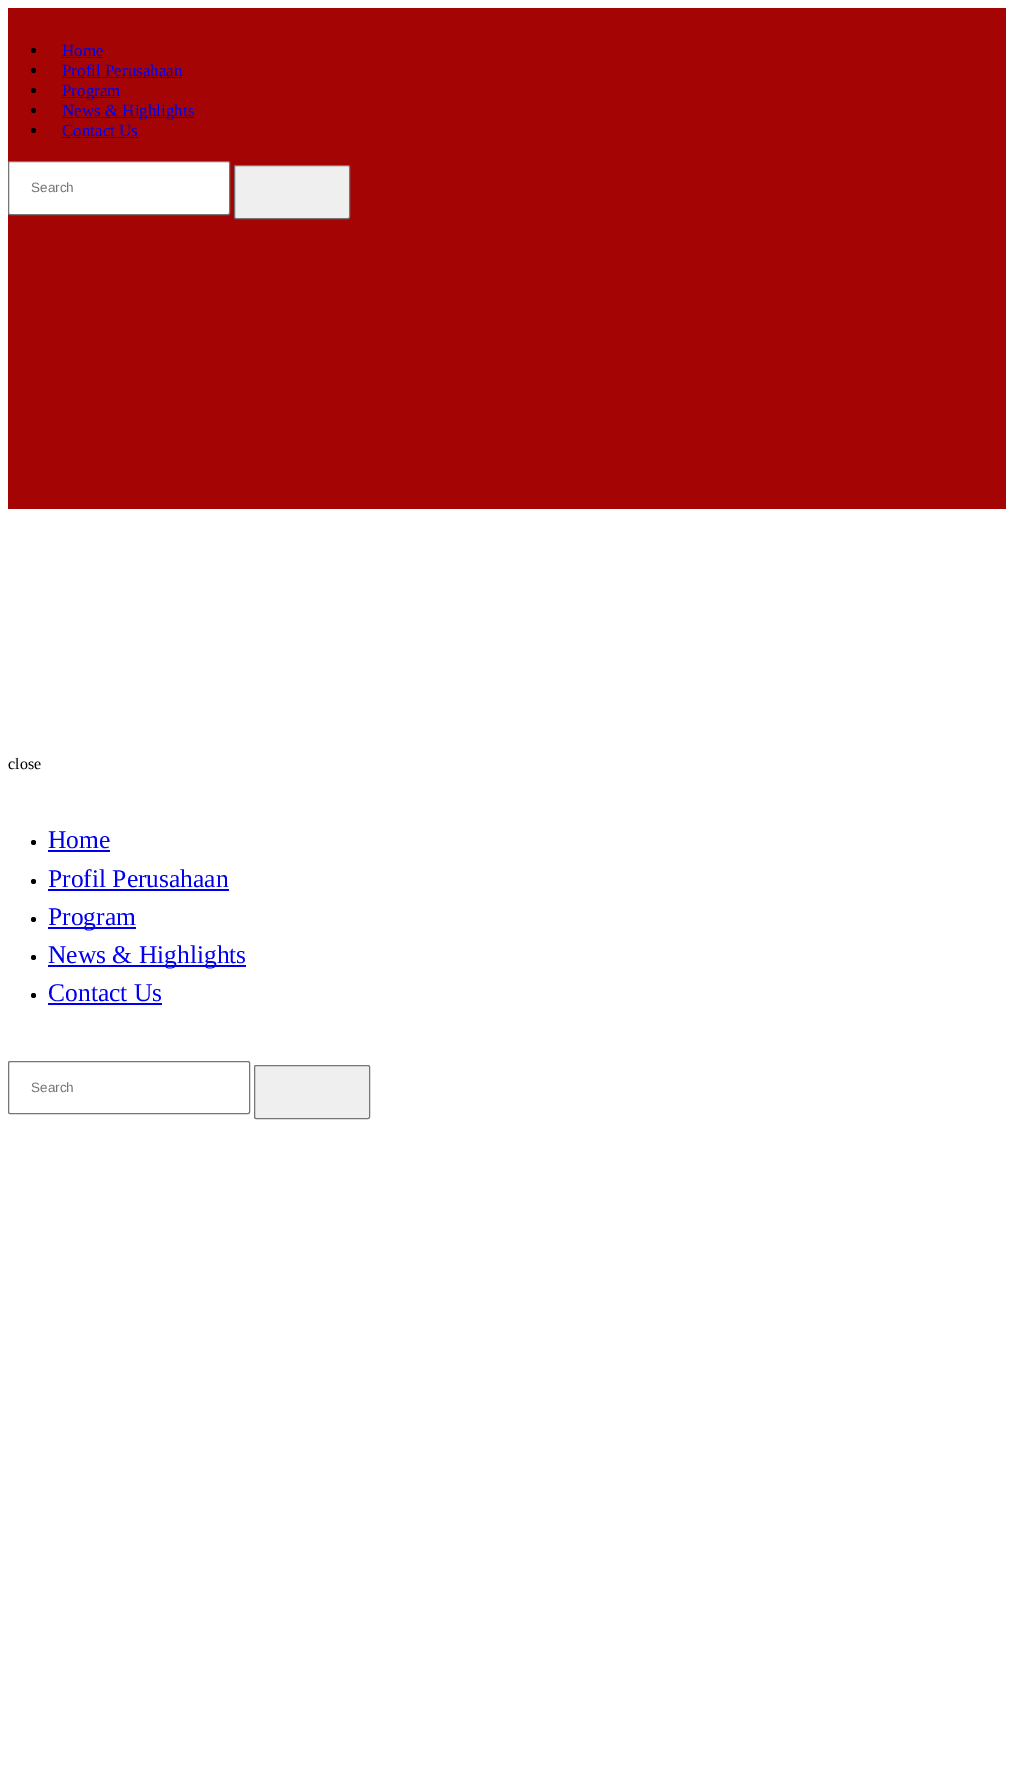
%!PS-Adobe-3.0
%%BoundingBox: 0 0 1014 1789
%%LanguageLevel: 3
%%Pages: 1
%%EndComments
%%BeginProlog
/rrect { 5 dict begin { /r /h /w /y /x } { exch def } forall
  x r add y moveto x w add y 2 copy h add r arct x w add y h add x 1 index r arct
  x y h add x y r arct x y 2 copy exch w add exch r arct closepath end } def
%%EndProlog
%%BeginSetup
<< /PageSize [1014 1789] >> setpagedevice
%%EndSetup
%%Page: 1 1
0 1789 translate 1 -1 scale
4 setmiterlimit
1 setgray
0 0 1014 1789 rectfill
0.647 0.016 0.016 setrgbcolor
8 8 998 501 rectfill
0 setgray
newpath 33.5 50.5 2.5 0 360 arc closepath fill
0 0 0.933 setrgbcolor
62 57 41 1 rectfill
0 setgray
newpath 33.5 70.5 2.5 0 360 arc closepath fill
0 0 0.933 setrgbcolor
62 77 120 1 rectfill
0 setgray
newpath 33.5 90.5 2.5 0 360 arc closepath fill
0 0 0.933 setrgbcolor
62 97 58 1 rectfill
0 setgray
newpath 33.5 110.5 2.5 0 360 arc closepath fill
0 0 0.933 setrgbcolor
62 117 132 1 rectfill
0 setgray
newpath 33.5 130.5 2.5 0 360 arc closepath fill
0 0 0.933 setrgbcolor
62 137 76 1 rectfill
1 setgray
8.5 161.5 221 53 1.5 rrect gsave fill grestore
0.463 setgray
stroke
0.937 setgray
234.5 165.5 115 53 1.5 rrect gsave fill grestore
0.463 setgray
stroke
0 setgray
newpath 33.5 842.5 2.5 0 360 arc closepath fill
0 0 0.933 setrgbcolor
48 850 62 2 rectfill
0 setgray
newpath 33.5 881.5 2.5 0 360 arc closepath fill
0 0 0.933 setrgbcolor
48 889 181 2 rectfill
0 setgray
newpath 33.5 919.5 2.5 0 360 arc closepath fill
0 0 0.933 setrgbcolor
48 927 88 2 rectfill
0 setgray
newpath 33.5 957.5 2.5 0 360 arc closepath fill
0 0 0.933 setrgbcolor
48 965 198 2 rectfill
0 setgray
newpath 33.5 995.5 2.5 0 360 arc closepath fill
0 0 0.933 setrgbcolor
48 1003 114 2 rectfill
0.463 setgray
8.5 1061.5 241 52 1.5 rrect stroke
0.937 setgray
254.5 1065.5 115 53 1.5 rrect gsave fill grestore
0.463 setgray
stroke
/LiberationSerif-Regular [17 0 0 -17 0 0] selectfont
0 0 0.933 setrgbcolor
62 56 moveto (Home) show
62 76 moveto (Profil Perusahaan) show
62 96 moveto (Program) show
62 116 moveto (News & Highlights) show
62 136 moveto (Contact Us) show
/LiberationSans-Regular [13.5 0 0 -13.5 0 0] selectfont
0.459 setgray
31 192 moveto (Search) show
/LiberationSerif-Regular [16 0 0 -16 0 0] selectfont
0 setgray
8 769 moveto (close) show
/LiberationSerif-Regular [25.5 0 0 -25.5 0 0] selectfont
0 0 0.933 setrgbcolor
48 848 moveto (Home) show
48 887 moveto (Profil Perusahaan) show
48 925 moveto (Program) show
48 963 moveto (News & Highlights) show
48 1001 moveto (Contact Us) show
/LiberationSans-Regular [13.5 0 0 -13.5 0 0] selectfont
0.459 setgray
31 1092 moveto (Search) show
showpage
%%EOF
